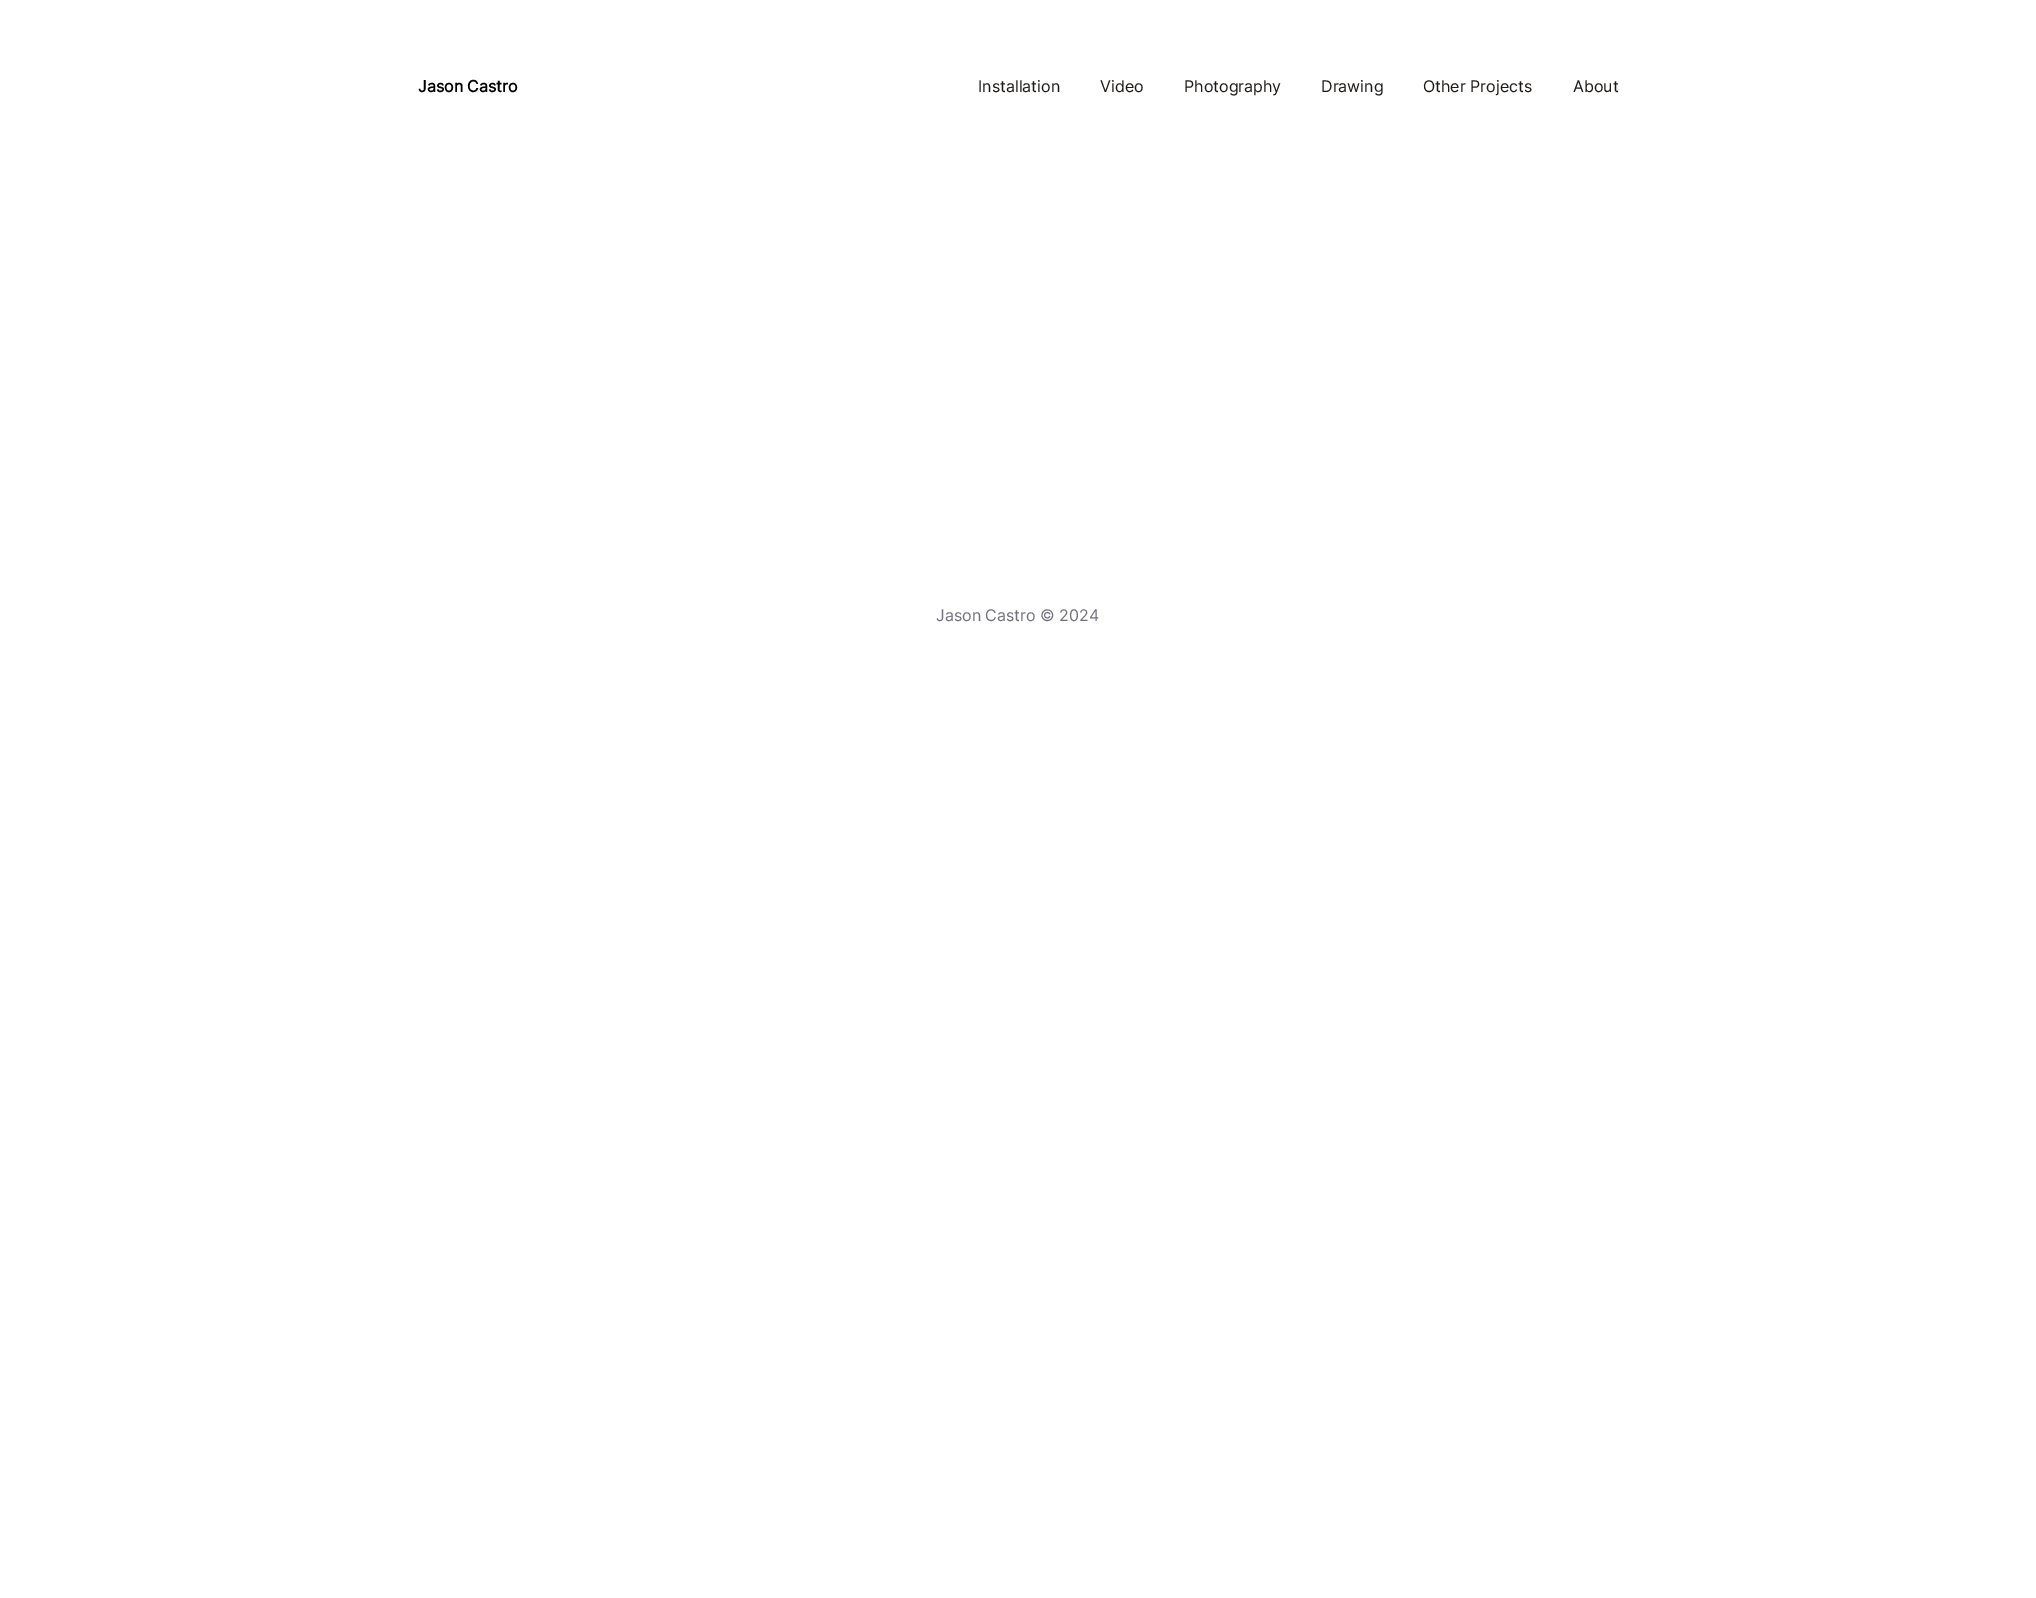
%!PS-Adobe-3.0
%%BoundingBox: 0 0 2036 1598
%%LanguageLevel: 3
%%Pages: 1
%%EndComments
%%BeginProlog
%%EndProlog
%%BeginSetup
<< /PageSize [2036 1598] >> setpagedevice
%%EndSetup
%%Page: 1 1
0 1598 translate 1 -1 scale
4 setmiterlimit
1 setgray
0 0 2036 1598 rectfill
/Inter-Bold [16 0 0 -16 0 0] selectfont
0 setgray
418 92 moveto (Jason Castro) show
/Inter-Regular [16 0 0 -16 0 0] selectfont
0.11 0.098 0.09 setrgbcolor
978 92 moveto (Installation) show
1100 92 moveto (Video) show
1184 92 moveto (Photography) show
1321 92 moveto (Drawing) show
1423 92 moveto (Other Projects) show
1573 92 moveto (About) show
0.443 0.443 0.478 setrgbcolor
936 621 moveto (Jason Castro © 2024) show
showpage
%%EOF
